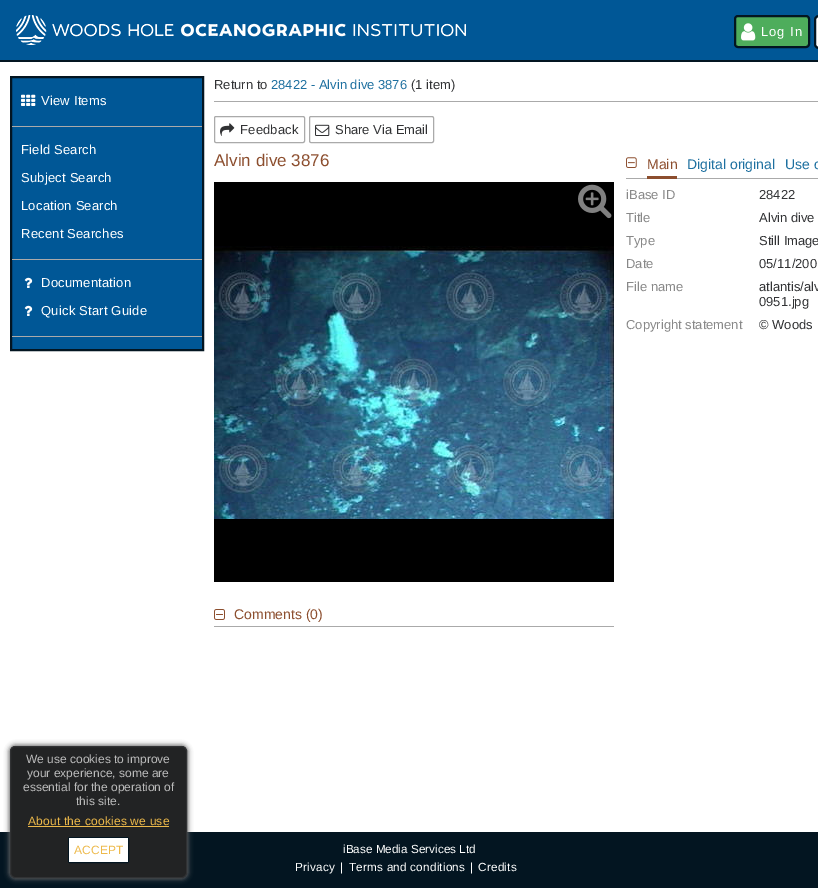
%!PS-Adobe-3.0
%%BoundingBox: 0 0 818 888
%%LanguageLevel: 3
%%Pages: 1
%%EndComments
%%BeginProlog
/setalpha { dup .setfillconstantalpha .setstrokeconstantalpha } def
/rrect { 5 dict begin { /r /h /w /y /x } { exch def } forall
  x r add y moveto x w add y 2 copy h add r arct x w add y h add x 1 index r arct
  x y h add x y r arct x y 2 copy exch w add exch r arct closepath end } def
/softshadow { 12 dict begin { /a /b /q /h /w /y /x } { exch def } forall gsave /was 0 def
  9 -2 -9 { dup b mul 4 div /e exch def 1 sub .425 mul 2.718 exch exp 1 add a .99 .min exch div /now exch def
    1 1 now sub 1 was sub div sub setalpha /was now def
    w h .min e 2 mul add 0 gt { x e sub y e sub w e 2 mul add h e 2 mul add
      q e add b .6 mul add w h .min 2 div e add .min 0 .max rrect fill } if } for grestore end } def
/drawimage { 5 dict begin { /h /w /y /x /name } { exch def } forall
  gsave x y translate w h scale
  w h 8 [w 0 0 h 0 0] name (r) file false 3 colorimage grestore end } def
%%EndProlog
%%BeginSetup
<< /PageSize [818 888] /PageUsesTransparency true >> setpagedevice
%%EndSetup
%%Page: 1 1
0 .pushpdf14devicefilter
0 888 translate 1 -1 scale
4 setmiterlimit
1 setgray
0 0 818 888 rectfill
0 0.341 0.588 setrgbcolor
0 0 818 60 rectfill
0.012 0.082 0.129 setrgbcolor
0 60 818 2 rectfill
(images/1.raw) 16 15 450 30 drawimage
0.306 0.678 0.361 setrgbcolor
735 16 74 31 3 rrect gsave fill grestore
0.012 0.082 0.129 setrgbcolor
2 setlinewidth
stroke
(images/2.raw) 741 23 15 18 drawimage
1 setgray
815 16 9 32 4 rrect gsave fill grestore
0.012 0.082 0.129 setrgbcolor
stroke
0 0.341 0.588 setrgbcolor
newpath 11 77 moveto 203 77 lineto 203 350 lineto 11 350 lineto closepath gsave fill grestore
0.012 0.082 0.129 setrgbcolor
stroke
0.667 setgray
12 126 190 1 rectfill
(images/3.raw) 21 94 15 12 drawimage
12 259 190 1 rectfill
12 336 190 1 rectfill
(images/4.raw) 24 277 9 11 drawimage
(images/4.raw) 24 305 9 11 drawimage
214 101 604 1 rectfill
1 setlinewidth
214.5 116.5 90 26 1.5 rrect stroke
(images/5.raw) 220 123 15 13 drawimage
309.5 116.5 124 26 1.5 rrect stroke
(images/6.raw) 315 124 15 12 drawimage
0 setgray
214 182 400 400 rectfill
(images/7.raw) 578 184 34 35 drawimage
(images/8.raw) 214 246 400 273 drawimage
0.667 setgray
214 626 400 1 rectfill
(images/9.raw) 214 609 11 11 drawimage
(images/10.raw) 626 157 11 11 drawimage
626 178 192 1 rectfill
0.549 0.306 0.18 setrgbcolor
647 176 30 3 rectfill
0.012 0.082 0.129 setrgbcolor
0 832 818 56 rectfill
0.4 setgray
9 745 179 134 6 2.5 1 softshadow
0.133 0.137 0.141 setrgbcolor
10.5 746.5 176 131 4.5 rrect gsave fill grestore
0.192 0.196 0.204 setrgbcolor
stroke
0.929 0.725 0.29 setrgbcolor
28 826 141 1 rectfill
0.012 0.082 0.129 setrgbcolor
68.5 837.5 60 25 1.5 rrect stroke
1 setgray
69 838 59 24 rectfill
/LiberationSans-Regular [13 0 0 -13 0 0] selectfont
761 36 moveto 1 0 (Log In) ashow
41 105 moveto 0.2 0 (View Items) ashow
21 154 moveto 0.2 0 (Field Search) ashow
21 182 moveto 0.2 0 (Subject Search) ashow
21 210 moveto 0.2 0 (Location Search) ashow
21 238 moveto 0.2 0 (Recent Searches) ashow
41 287 moveto 0.2 0 (Documentation) ashow
41 315 moveto 0.2 0 (Quick Start Guide) ashow
0.192 0.196 0.204 setrgbcolor
214 89 moveto (Return to) show
0.118 0.439 0.627 setrgbcolor
271 89 moveto (28422 - Alvin dive 3876) show
0.192 0.196 0.204 setrgbcolor
411 89 moveto (\(1 item\)) show
240 134 moveto 0.2 0 (Feedback) ashow
335 134 moveto (Share Via Email) show
/LiberationSans-Regular [17 0 0 -17 0 0] selectfont
0.549 0.306 0.18 setrgbcolor
214 166 moveto (Alvin dive 3876) show
/LiberationSans-Regular [14 0 0 -14 0 0] selectfont
234 619 moveto (Comments \(0\)) show
647 169 moveto (Main) show
0.118 0.439 0.627 setrgbcolor
687 169 moveto (Digital original) show
785 169 moveto (Use o) show
/LiberationSans-Regular [13 0 0 -13 0 0] selectfont
0.533 setgray
626 199 moveto (iBase ID) show
0.192 0.196 0.204 setrgbcolor
759 199 moveto (28422) show
0.533 setgray
626 222 moveto (Title) show
0.192 0.196 0.204 setrgbcolor
759 222 moveto (Alvin dive) show
0.533 setgray
626 245 moveto (Type) show
0.192 0.196 0.204 setrgbcolor
759 245 moveto (Still Image) show
0.533 setgray
626 268 moveto (Date) show
0.192 0.196 0.204 setrgbcolor
759 268 moveto (05/11/200) show
0.533 setgray
626 291 moveto (File name) show
0.192 0.196 0.204 setrgbcolor
759 291 moveto (atlantis/alv) show
759 306 moveto (0951.jpg) show
0.533 setgray
626 329 moveto (Copyright statement) show
0.192 0.196 0.204 setrgbcolor
759 329 moveto (© Woods) show
/LiberationSans-Regular [12 0 0 -12 0 0] selectfont
0.733 setgray
26 763 moveto (We use cookies to improve) show
27 777 moveto (your experience, some are) show
23 791 moveto (essential for the operation of) show
76 805 moveto (this site.) show
0.929 0.725 0.29 setrgbcolor
28 825 moveto 0.2 0 (About the cookies we use) ashow
74 854 moveto 0.2 0 (ACCEPT) ashow
/LiberationSans-Regular [11.75 0 0 -11.75 0 0] selectfont
1 setgray
343 853 moveto (iBase Media Services Ltd) show
295 871 moveto 0.2 0 (Privacy) ashow
340 871 moveto 0.2 0 (|) ashow
349 871 moveto 0.2 0 (Terms and conditions) ashow
470 871 moveto 0.2 0 (|) ashow
478 871 moveto 0.2 0 (Credits) ashow
.poppdf14devicefilter showpage
%%EOF
